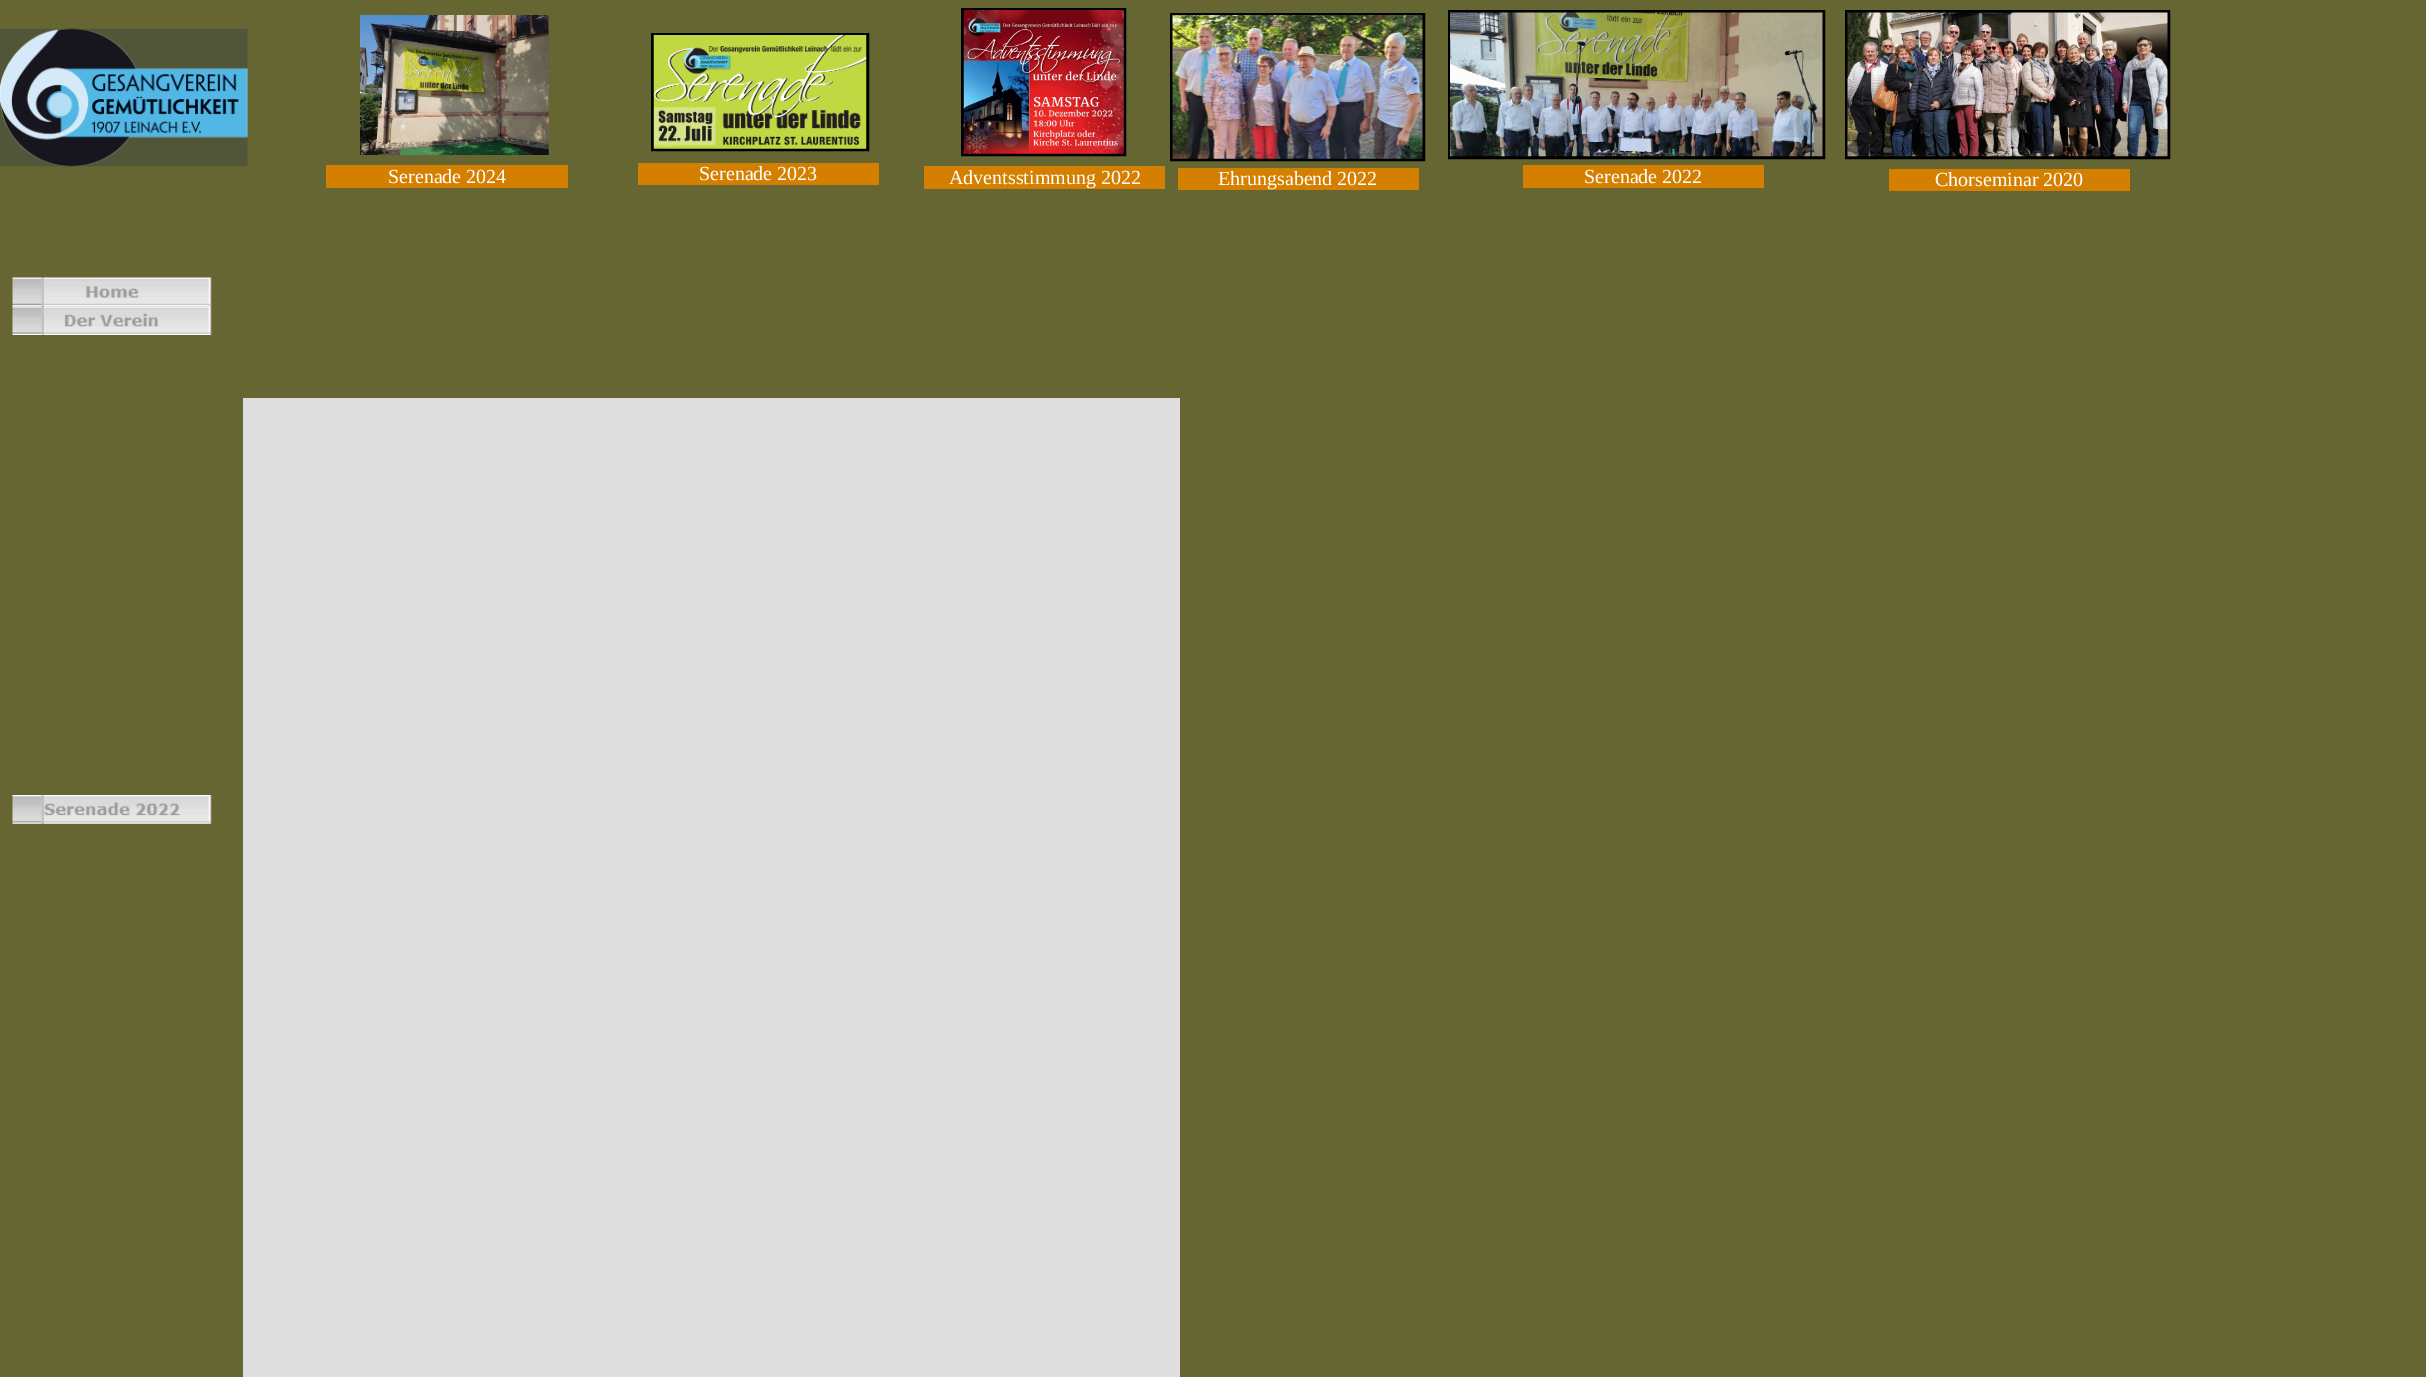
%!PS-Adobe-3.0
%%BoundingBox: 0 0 2426 1377
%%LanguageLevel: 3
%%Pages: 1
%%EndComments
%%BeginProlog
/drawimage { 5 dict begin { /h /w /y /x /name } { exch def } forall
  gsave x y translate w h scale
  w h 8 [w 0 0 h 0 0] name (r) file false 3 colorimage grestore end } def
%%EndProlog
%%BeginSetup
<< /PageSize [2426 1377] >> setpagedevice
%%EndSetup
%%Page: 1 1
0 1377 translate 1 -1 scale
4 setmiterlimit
0.4 0.4 0.2 setrgbcolor
0 0 2426 1377 rectfill
(images/1.raw) 0 28 248 139 drawimage
(images/2.raw) 360 15 189 140 drawimage
0.831 0.498 0 setrgbcolor
326 165 242 23 rectfill
0 setgray
3 setlinewidth
652.5 34.5 215 115 rectstroke
(images/3.raw) 653 35 214 114 drawimage
0.831 0.498 0 setrgbcolor
638 163 241 22 rectfill
0 setgray
962.5 9.5 162 145 rectstroke
(images/4.raw) 963 10 161 144 drawimage
0.831 0.498 0 setrgbcolor
924 166 241 23 rectfill
0 setgray
1171.5 14.5 252 145 rectstroke
(images/5.raw) 1172 15 251 144 drawimage
0.831 0.498 0 setrgbcolor
1178 168 241 22 rectfill
0 setgray
1449.5 11.5 374 146 rectstroke
(images/6.raw) 1450 12 373 145 drawimage
0.831 0.498 0 setrgbcolor
1523 165 241 23 rectfill
0 setgray
1846.5 11.5 322 146 rectstroke
(images/7.raw) 1847 12 321 145 drawimage
0.831 0.498 0 setrgbcolor
1889 169 241 22 rectfill
(images/8.raw) 12 277 200 30 drawimage
(images/9.raw) 12 306 200 29 drawimage
(images/10.raw) 12 795 200 29 drawimage
0.871 setgray
243 398 937 979 rectfill
/LiberationSerif-Regular [20 0 0 -20 0 0] selectfont
1 setgray
388 183 moveto (Serenade 2024) show
699 180 moveto (Serenade 2023) show
949 184 moveto (Adventsstimmung 2022) show
1218 185 moveto (Ehrungsabend 2022) show
1584 183 moveto (Serenade 2022) show
1935 186 moveto (Chorseminar 2020) show
showpage
%%EOF
